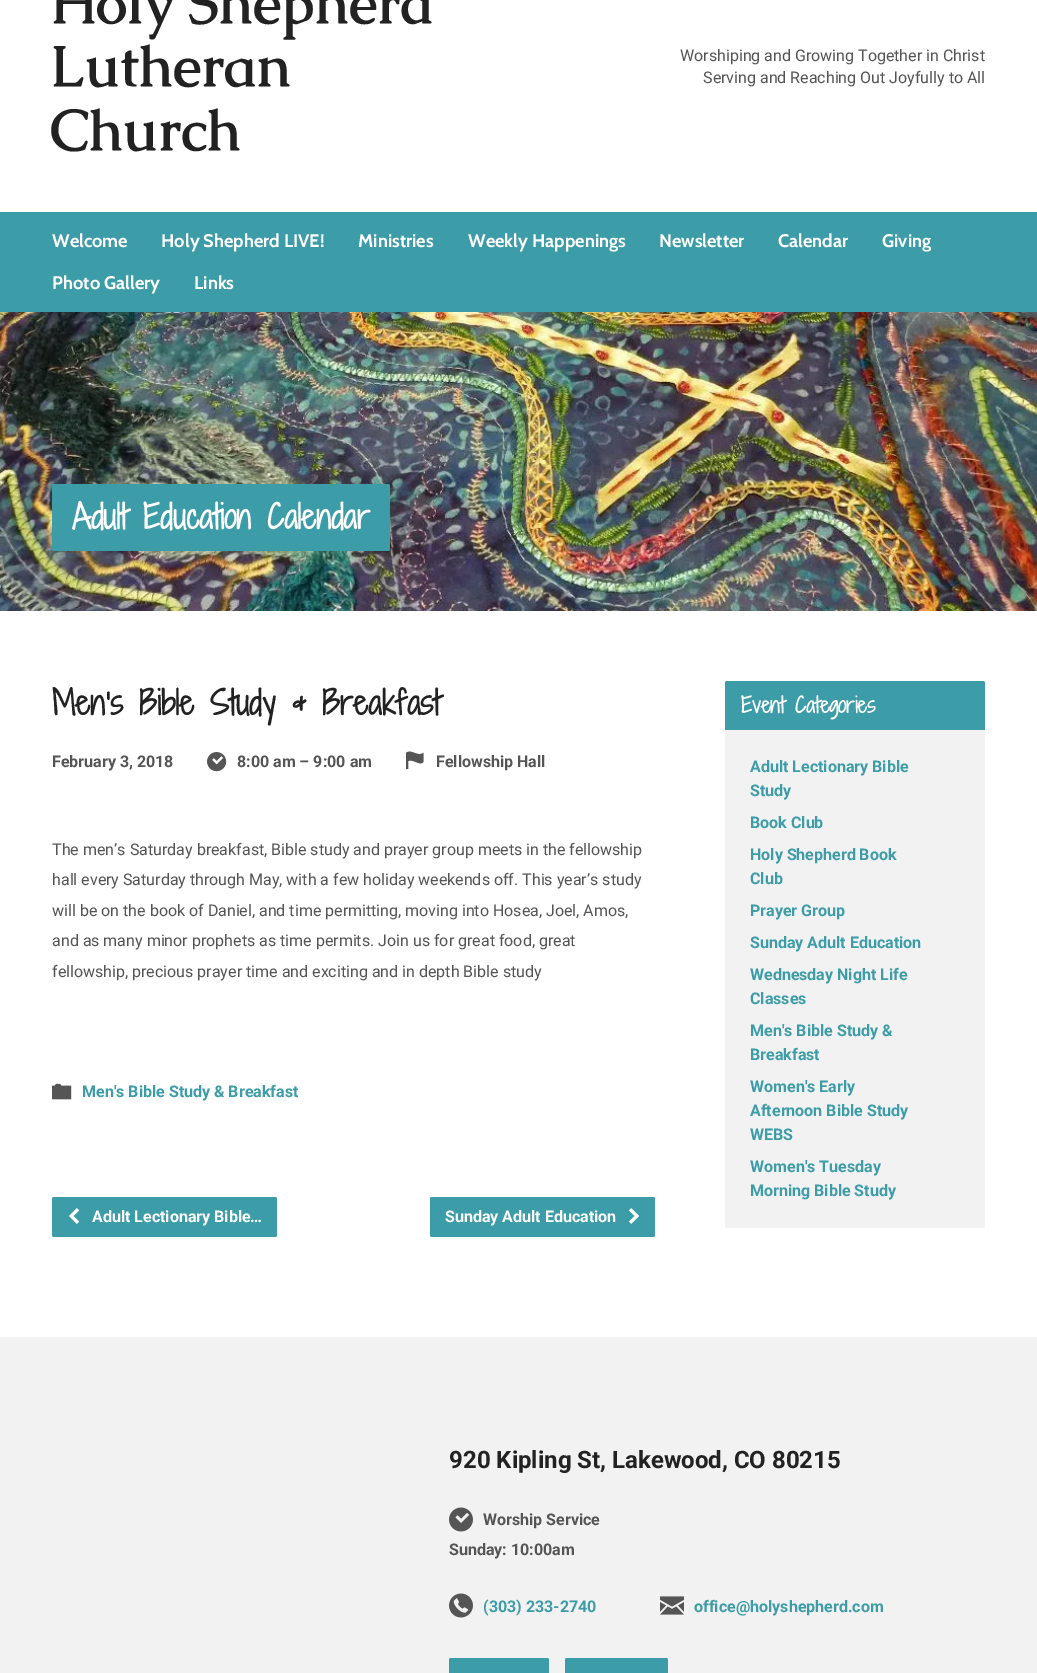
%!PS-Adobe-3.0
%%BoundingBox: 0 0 1037 1673
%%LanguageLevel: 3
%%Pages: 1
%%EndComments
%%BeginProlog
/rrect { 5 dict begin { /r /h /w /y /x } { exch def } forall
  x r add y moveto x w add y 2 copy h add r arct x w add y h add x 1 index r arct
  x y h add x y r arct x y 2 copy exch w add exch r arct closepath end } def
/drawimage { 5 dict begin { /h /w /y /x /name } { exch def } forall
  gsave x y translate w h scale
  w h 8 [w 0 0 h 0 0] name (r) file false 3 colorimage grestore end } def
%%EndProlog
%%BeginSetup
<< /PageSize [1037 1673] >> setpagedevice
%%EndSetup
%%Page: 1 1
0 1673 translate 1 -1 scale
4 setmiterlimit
1 setgray
0 0 1037 1673 rectfill
0.235 0.612 0.655 setrgbcolor
0 212 1037 100 rectfill
(images/1.raw) 0 312 1037 299 drawimage
52 484 338 67 2 rrect fill
(images/2.raw) 207 752 20 20 drawimage
(images/3.raw) 406 751 18 19 drawimage
(images/4.raw) 52 1083 20 17 drawimage
52 1197 225 40 2 rrect fill
(images/5.raw) 69 1208 11 16 drawimage
430 1197 225 40 2 rrect fill
(images/6.raw) 628 1208 11 16 drawimage
0.949 setgray
725 681 260 547 2 rrect fill
0.235 0.612 0.655 setrgbcolor
newpath 727 681 moveto 983 681 lineto 984 681 985 682 985 683 curveto 985 730 lineto 725 730 lineto 725 683 lineto 725 682 726 681 727 681 curveto closepath fill
0.949 setgray
0 1337 1037 336 rectfill
(images/7.raw) 449 1507 24 25 drawimage
(images/8.raw) 449 1593 24 25 drawimage
(images/9.raw) 660 1596 24 19 drawimage
0.235 0.612 0.655 setrgbcolor
449 1658 100 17 2 rrect fill
565 1658 103 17 2 rrect fill
/Caudex-Bold [57.5 0 0 -57.5 0 0] selectfont
0.133 setgray
50 23 moveto (Holy Shepherd) show
50 86 moveto (Lutheran) show
50 150 moveto (Church) show
/Roboto-Regular [16 0 0 -16 0 0] selectfont
0.333 setgray
680 61 moveto (Worshiping and Growing Together in Christ) show
703 83 moveto (Serving and Reaching Out Joyfully to All) show
/Cabin-Bold [18.25 0 0 -18.25 0 0] selectfont
1 setgray
52 247 moveto (Welcome) show
161 247 moveto (Holy Shepherd LIVE!) show
358 247 moveto (Ministries) show
468 247 moveto (Weekly Happenings) show
659 247 moveto (Newsletter) show
778 247 moveto (Calendar) show
882 247 moveto (Giving) show
52 289 moveto (Photo Gallery) show
194 289 moveto (Links) show
/ShadowsIntoLightTwo-Bold [32 0 0 -32 0 0] selectfont
72 529 moveto (Adult Education Calendar) show
0.133 setgray
52 715 moveto (Men’s Bible Study & Breakfast) show
/Roboto-Bold [16 0 0 -16 0 0] selectfont
0.333 setgray
52 767 moveto (February 3, 2018) show
237 767 moveto (8:00 am – 9:00 am) show
436 767 moveto (Fellowship Hall) show
/Roboto-Regular [16 0 0 -16 0 0] selectfont
52 855 moveto (The men’s Saturday breakfast, Bible study and prayer group meets in the fellowship) show
52 885 moveto (hall every Saturday through May, with a few holiday weekends off. This year’s study) show
52 916 moveto (will be on the book of Daniel, and time permitting, moving into Hosea, Joel, Amos,) show
52 946 moveto (and as many minor prophets as time permits. Join us for great food, great) show
52 977 moveto (fellowship, precious prayer time and exciting and in depth Bible study) show
/Roboto-Bold [16 0 0 -16 0 0] selectfont
0.235 0.612 0.655 setrgbcolor
82 1097 moveto (Men's Bible Study & Breakfast) show
1 setgray
92 1222 moveto (Adult Lectionary Bible…) show
445 1222 moveto (Sunday Adult Education) show
/ShadowsIntoLightTwo-Bold [20.75 0 0 -20.75 0 0] selectfont
741 713 moveto (Event Categories) show
/Roboto-Bold [16 0 0 -16 0 0] selectfont
0.235 0.612 0.655 setrgbcolor
750 772 moveto (Adult Lectionary Bible) show
750 796 moveto (Study) show
750 828 moveto (Book Club) show
750 860 moveto (Holy Shepherd Book) show
750 884 moveto (Club) show
750 916 moveto (Prayer Group) show
750 948 moveto (Sunday Adult Education) show
750 980 moveto (Wednesday Night Life) show
750 1004 moveto (Classes) show
750 1036 moveto (Men's Bible Study &) show
750 1060 moveto (Breakfast) show
750 1092 moveto (Women's Early) show
750 1116 moveto (Afternoon Bible Study) show
750 1140 moveto (WEBS) show
750 1172 moveto (Women's Tuesday) show
750 1196 moveto (Morning Bible Study) show
/Roboto-Bold [24 0 0 -24 0 0] selectfont
0.133 setgray
449 1468 moveto (920 Kipling St, Lakewood, CO 80215) show
/Roboto-Bold [16 0 0 -16 0 0] selectfont
0.333 setgray
483 1525 moveto (Worship Service) show
449 1555 moveto (Sunday: 10:00am) show
0.235 0.612 0.655 setrgbcolor
483 1612 moveto (\(303\) 233-2740) show
694 1612 moveto (office@holyshepherd.com) show
showpage
%%EOF
